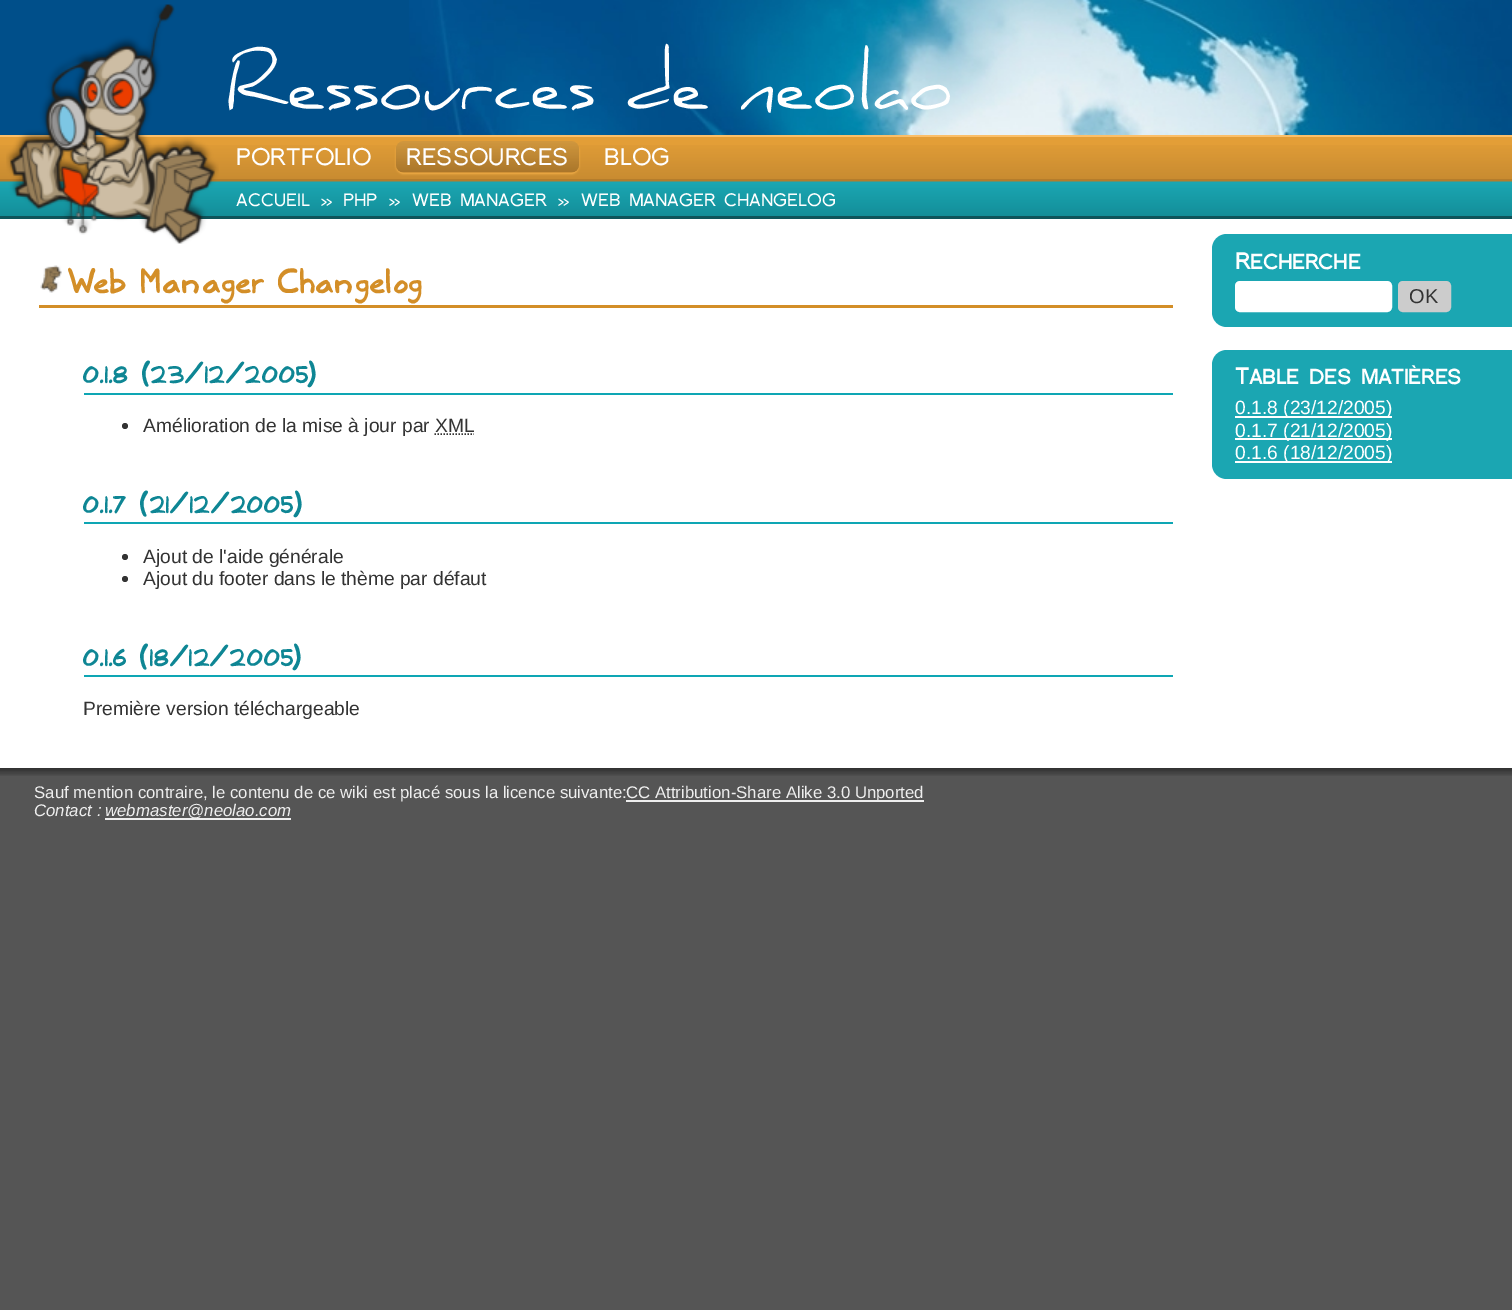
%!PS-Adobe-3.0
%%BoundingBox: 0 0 1512 1310
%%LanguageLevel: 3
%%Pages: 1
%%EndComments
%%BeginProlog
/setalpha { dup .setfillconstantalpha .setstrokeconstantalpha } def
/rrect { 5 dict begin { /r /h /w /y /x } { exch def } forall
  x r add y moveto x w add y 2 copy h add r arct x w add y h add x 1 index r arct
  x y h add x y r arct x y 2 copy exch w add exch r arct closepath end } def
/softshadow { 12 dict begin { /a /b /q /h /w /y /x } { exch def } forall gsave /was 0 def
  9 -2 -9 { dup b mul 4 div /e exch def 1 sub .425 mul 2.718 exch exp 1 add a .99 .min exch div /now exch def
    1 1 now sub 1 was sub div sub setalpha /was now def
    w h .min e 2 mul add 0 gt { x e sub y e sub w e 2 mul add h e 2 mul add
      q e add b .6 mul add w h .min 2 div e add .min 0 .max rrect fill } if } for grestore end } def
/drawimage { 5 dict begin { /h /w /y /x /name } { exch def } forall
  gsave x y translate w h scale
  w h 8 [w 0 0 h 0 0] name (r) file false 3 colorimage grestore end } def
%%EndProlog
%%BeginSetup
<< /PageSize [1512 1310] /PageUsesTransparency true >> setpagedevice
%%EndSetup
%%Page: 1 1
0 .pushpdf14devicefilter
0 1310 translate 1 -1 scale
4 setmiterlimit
0.333 setgray
0 0 1512 1310 rectfill
1 setgray
0 219 1512 549 rectfill
0 0.31 0.541 setrgbcolor
0 0 409 135 rectfill
(images/1.raw) 409 0 1103 135 drawimage
0.89 0.62 0.216 setrgbcolor
0 137 1512 8 rectfill
(images/3.raw) 0 145 1512 34 drawimage
0.984 0.749 0.412 setrgbcolor
0 135 1512 2 rectfill
0.706 0.49 0.173 setrgbcolor
0 179 1512 3 rectfill
(images/5.raw) 0 181 1512 35 drawimage
0.055 0.329 0.353 setrgbcolor
0 216 1512 3 rectfill
(images/2.raw) 6 4 213 240 drawimage
0.953 0.682 0.278 setrgbcolor
396 143 183 31 8 1 1 softshadow
(images/4.raw) 396 141 183 32 drawimage
(images/6.raw) 40 265 22 28 drawimage
0.827 0.557 0.153 setrgbcolor
39 305 1134 3 rectfill
0.055 0.651 0.706 setrgbcolor
84 393 1089 2 rectfill
0.2 setgray
newpath 125 426 3 0 360 arc closepath fill
1.5 setlinewidth
[1.5 1.5] 0 setdash
newpath 434.5 434 moveto 474 434 lineto stroke
0.055 0.651 0.706 setrgbcolor
84 522 1089 2 rectfill
0.2 setgray
newpath 125 557 3 0 360 arc closepath fill
newpath 125 579 3 0 360 arc closepath fill
0.055 0.651 0.706 setrgbcolor
84 675 1089 2 rectfill
0.106 0.651 0.698 setrgbcolor
newpath 1227 234 moveto 1512 234 lineto 1512 327 lineto 1227 327 lineto 1218.5 327 1212 320.5 1212 312 curveto 1212 249 lineto 1212 240.5 1218.5 234 1227 234 curveto closepath fill
1 setgray
1236.5 282.5 154 28 3.5 rrect gsave fill grestore
3 setlinewidth
[] 0 setdash
stroke
0.8 setgray
1399.5 282.5 50 28 3.5 rrect gsave fill grestore
stroke
0.106 0.651 0.698 setrgbcolor
newpath 1227 350 moveto 1512 350 lineto 1512 479 lineto 1227 479 lineto 1218.5 479 1212 472.5 1212 464 curveto 1212 365 lineto 1212 356.5 1218.5 350 1227 350 curveto closepath fill
1 setgray
1235 416 157 2 rectfill
1235 438 157 2 rectfill
1235 461 157 2 rectfill
(images/7.raw) 0 768 1512 8 drawimage
0.933 setgray
626 800 298 2 rectfill
105 818 186 2 rectfill
/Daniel-Regular [72 0 0 -72 0 0] selectfont
1 setgray
225 109 moveto (Ressources de neolao) show
/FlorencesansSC-Regular [24 0 0 -24 0 0] selectfont
236 165 moveto (PORTFOLIO) show
406 165 moveto (RESSOURCES) show
604 165 moveto (BLOG) show
/FlorencesansSC-Regular [18 0 0 -18 0 0] selectfont
236 206 moveto (ACCUEIL) show
320 206 moveto (») show
343 206 moveto (PHP) show
388 206 moveto (») show
412 206 moveto (WEB MANAGER) show
557 206 moveto (») show
581 206 moveto (WEB MANAGER CHANGELOG) show
/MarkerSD-Bold [34.5 0 0 -34.5 0 0] selectfont
0.827 0.557 0.153 setrgbcolor
68 293 moveto (Web Manager Changelog) show
/MarkerSD-Bold [30.75 0 0 -30.75 0 0] selectfont
0.055 0.525 0.58 setrgbcolor
83 383 moveto (0.1.8 \(23/12/2005\)) show
/LiberationSans-Regular [19.25 0 0 -19.25 0 0] selectfont
0.2 setgray
143 432 moveto (Amélioration de la mise à jour par XML) show
/MarkerSD-Bold [30.75 0 0 -30.75 0 0] selectfont
0.055 0.525 0.58 setrgbcolor
83 513 moveto (0.1.7 \(21/12/2005\)) show
/LiberationSans-Regular [19.25 0 0 -19.25 0 0] selectfont
0.2 setgray
143 563 moveto (Ajout de l'aide générale) show
143 585 moveto (Ajout du footer dans le thème par défaut) show
/MarkerSD-Bold [30.75 0 0 -30.75 0 0] selectfont
0.055 0.525 0.58 setrgbcolor
83 666 moveto (0.1.6 \(18/12/2005\)) show
/LiberationSans-Regular [19.25 0 0 -19.25 0 0] selectfont
0.2 setgray
83 715 moveto (Première version téléchargeable) show
/FlorencesansSC-Bold [23 0 0 -23 0 0] selectfont
1 setgray
1235 269 moveto (Recherche) show
/LiberationSans-Regular [20 0 0 -20 0 0] selectfont
0.2 setgray
1409 303 moveto (OK) show
/FlorencesansSC-Bold [23 0 0 -23 0 0] selectfont
1 setgray
1235 384 moveto (Table des matières) show
/LiberationSans-Regular [19.25 0 0 -19.25 0 0] selectfont
1235 414 moveto (0.1.8 \(23/12/2005\)) show
1235 437 moveto (0.1.7 \(21/12/2005\)) show
1235 459 moveto (0.1.6 \(18/12/2005\)) show
/LiberationSans-Regular [16.8 0 0 -16.8 0 0] selectfont
0.933 setgray
34 798 moveto (Sauf mention contraire, le contenu de ce wiki est placé sous la licence suivante:) show
626 798 moveto (CC Attribution-Share Alike 3.0 Unported) show
/LiberationSans-Italic [16.8 0 0 -16.8 0 0] selectfont
34 816 moveto (Contact :) show
105 816 moveto (webmaster@neolao.com) show
.poppdf14devicefilter showpage
%%EOF
